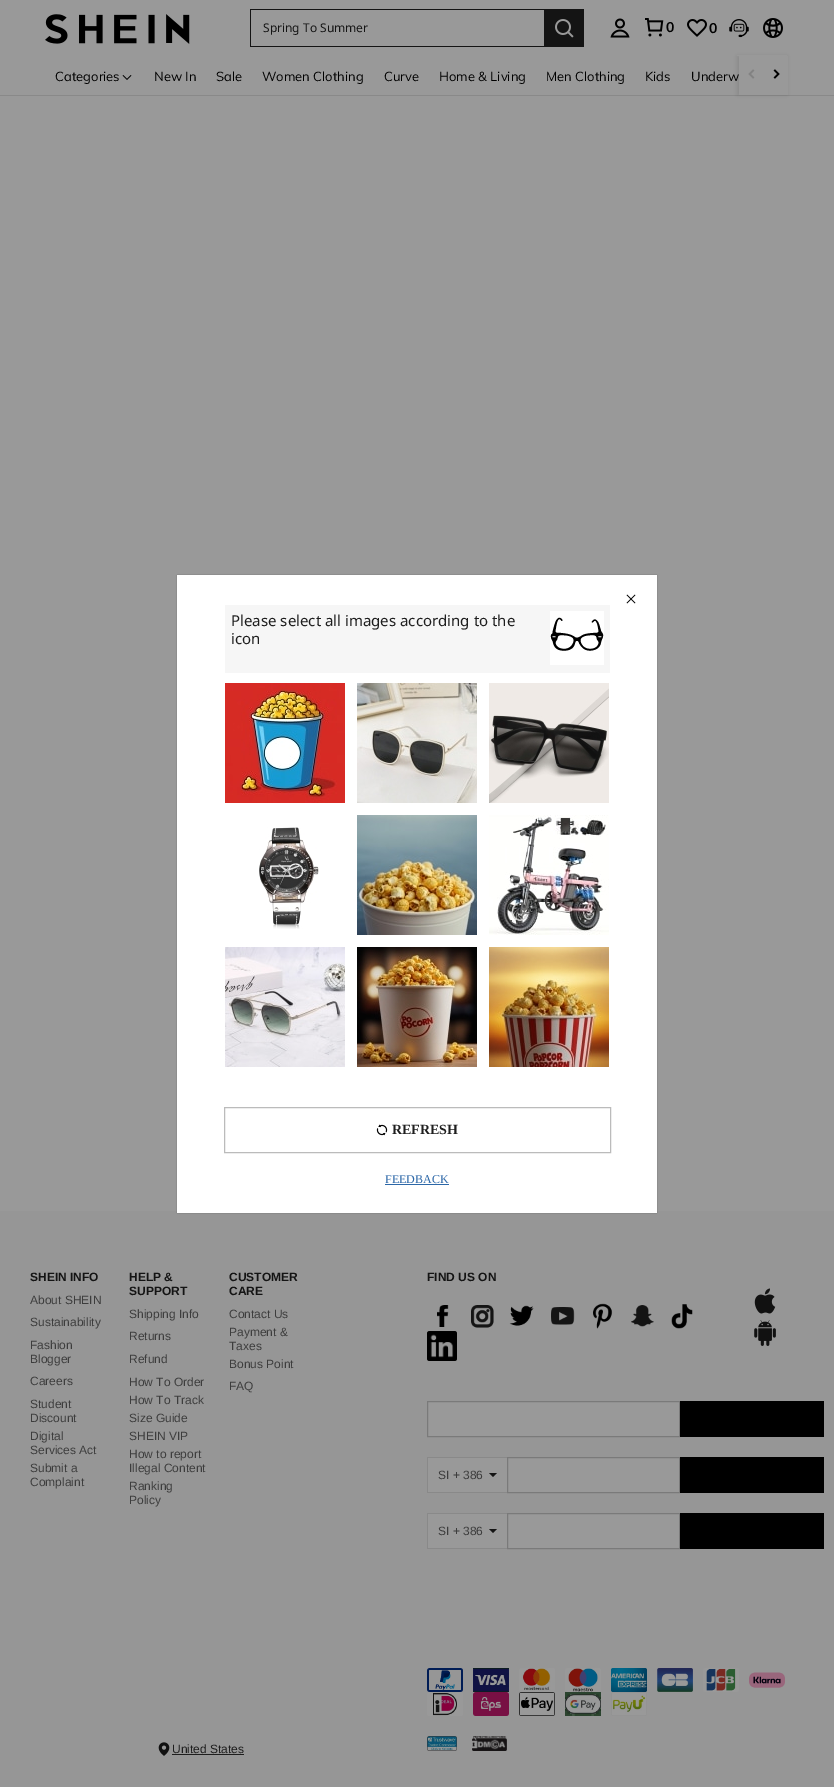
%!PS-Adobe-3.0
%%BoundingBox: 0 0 834 1787
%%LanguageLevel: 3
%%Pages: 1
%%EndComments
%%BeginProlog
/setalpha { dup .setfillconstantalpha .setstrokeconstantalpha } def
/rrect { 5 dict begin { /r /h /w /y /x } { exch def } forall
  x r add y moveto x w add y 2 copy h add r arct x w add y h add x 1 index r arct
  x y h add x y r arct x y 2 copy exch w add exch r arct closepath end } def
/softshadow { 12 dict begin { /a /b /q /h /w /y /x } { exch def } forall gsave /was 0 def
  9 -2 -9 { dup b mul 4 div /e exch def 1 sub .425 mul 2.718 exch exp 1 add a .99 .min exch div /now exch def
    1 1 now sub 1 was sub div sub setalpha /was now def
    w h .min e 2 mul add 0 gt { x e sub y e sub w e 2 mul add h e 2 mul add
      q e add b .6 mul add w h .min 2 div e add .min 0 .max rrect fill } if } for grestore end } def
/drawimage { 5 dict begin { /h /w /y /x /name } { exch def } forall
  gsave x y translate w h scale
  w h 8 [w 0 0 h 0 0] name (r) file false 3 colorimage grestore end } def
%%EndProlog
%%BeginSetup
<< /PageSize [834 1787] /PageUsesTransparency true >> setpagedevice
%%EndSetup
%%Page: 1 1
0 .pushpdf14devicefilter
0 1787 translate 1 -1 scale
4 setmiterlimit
0.6 setgray
0 0 834 1787 rectfill
0.537 setgray
0 95 834 1 rectfill
0 setgray
737 56 50 39 0 1.5 0.08 softshadow
0.6 setgray
737 55 50 1 rectfill
(images/1.raw) 45 14 145 30 drawimage
0.078 setgray
250 9 294 1 rectfill
250 46 294 1 rectfill
250 9 1 38 rectfill
544 9 40 38 rectfill
(images/2.raw) 555 19 19 19 drawimage
(images/3.raw) 610 18 20 20 drawimage
(images/4.raw) 645 18 19 19 drawimage
(images/5.raw) 687 19 20 18 drawimage
(images/6.raw) 729 19 20 19 drawimage
(images/7.raw) 763 18 20 20 drawimage
(images/8.raw) 122 75 10 5 drawimage
0.6 setgray
739 56 49 39 rectfill
(images/9.raw) 748 69 7 10 drawimage
(images/10.raw) 773 69 7 10 drawimage
0.588 setgray
0 1211 834 576 rectfill
(images/11.raw) 437 1305 12 22 drawimage
(images/12.raw) 471 1305 23 23 drawimage
(images/13.raw) 509 1305 25 21 drawimage
(images/14.raw) 551 1307 24 18 drawimage
(images/15.raw) 593 1303 20 26 drawimage
(images/16.raw) 631 1305 23 22 drawimage
(images/17.raw) 671 1304 22 25 drawimage
(images/18.raw) 427 1331 30 30 drawimage
(images/19.raw) 754 1288 22 26 drawimage
(images/20.raw) 754 1320 22 26 drawimage
0.6 setgray
newpath 427.5 1401.5 moveto 679.5 1401.5 lineto 679.5 1436.5 lineto 427.5 1436.5 lineto closepath gsave fill grestore
0.478 setgray
stroke
0 setgray
680 1401 144 36 rectfill
0.6 setgray
428 1458 79 34 rectfill
0.537 setgray
427 1457 80 1 rectfill
427 1492 80 1 rectfill
427 1457 1 36 rectfill
0.078 setgray
newpath 489 1473 moveto 497 1473 lineto 493 1477 lineto closepath fill
0.6 setgray
newpath 507.5 1457.5 moveto 679.5 1457.5 lineto 679.5 1492.5 lineto 507.5 1492.5 lineto closepath gsave fill grestore
0.478 setgray
stroke
0 setgray
680 1457 144 36 rectfill
0.6 setgray
428 1514 79 34 rectfill
0.537 setgray
427 1513 80 1 rectfill
427 1548 80 1 rectfill
427 1513 1 36 rectfill
0.078 setgray
newpath 489 1529 moveto 497 1529 lineto 493 1533 lineto closepath fill
0.6 setgray
newpath 507.5 1513.5 moveto 679.5 1513.5 lineto 679.5 1548.5 lineto 507.5 1548.5 lineto closepath gsave fill grestore
0.478 setgray
stroke
0 setgray
680 1513 144 36 rectfill
(images/21.raw) 427 1668 36 24 drawimage
(images/22.raw) 473 1668 36 24 drawimage
(images/23.raw) 519 1668 36 24 drawimage
(images/24.raw) 565 1668 36 24 drawimage
(images/25.raw) 611 1668 36 24 drawimage
(images/26.raw) 657 1668 36 24 drawimage
(images/27.raw) 703 1668 36 24 drawimage
(images/28.raw) 749 1672 36 16 drawimage
(images/29.raw) 427 1692 36 24 drawimage
(images/30.raw) 473 1692 36 24 drawimage
(images/31.raw) 519 1692 36 24 drawimage
(images/32.raw) 565 1692 36 24 drawimage
(images/33.raw) 611 1692 36 24 drawimage
(images/34.raw) 158 1742 12 14 drawimage
0.118 setgray
172 1754 72 1 rectfill
(images/35.raw) 427 1736 30 15 drawimage
(images/36.raw) 472 1736 35 15 drawimage
0 setgray
177 575 480 638 0 0.5 0.3 softshadow
1 setgray
177 575 480 638 rectfill
(images/37.raw) 626 594 10 10 drawimage
0.965 setgray
225 605 385 68 rectfill
1 setgray
550 611 54 54 rectfill
(images/38.raw) 550 617 54 34 drawimage
(images/39.raw) 225 683 120 120 drawimage
(images/40.raw) 357 683 120 120 drawimage
(images/41.raw) 489 683 120 120 drawimage
(images/42.raw) 259 827 60 102 drawimage
(images/43.raw) 357 815 120 120 drawimage
(images/44.raw) 489 815 120 120 drawimage
(images/45.raw) 225 947 120 120 drawimage
(images/46.raw) 357 947 120 120 drawimage
(images/47.raw) 489 947 120 120 drawimage
0.733 setgray
224.5 1107.5 386 45 rectstroke
(images/48.raw) 376 1124 12 12 drawimage
0.176 0.408 0.659 setrgbcolor
385 1184 64 1 rectfill
/NotoSans-Regular [12 0 0 -12 0 0] selectfont
0.078 setgray
263 32 moveto (Spring To Summer) show
/Muli-Bold [14 0 0 -14 0 0] selectfont
0 setgray
666 32 moveto (0) show
709 33 moveto (0) show
/Muli-Regular [13 0 0 -13 0 0] selectfont
55 81 moveto (Categories) show
154 81 moveto (New In) show
216 81 moveto (Sale) show
262 81 moveto (Women Clothing) show
384 81 moveto (Curve) show
439 81 moveto (Home & Living) show
546 81 moveto (Men Clothing) show
645 81 moveto (Kids) show
691 81 moveto (Underw) show
/LiberationSans-Bold [12 0 0 -12 0 0] selectfont
0.078 setgray
30 1281 moveto (SHEIN INFO) show
/LiberationSans-Regular [12 0 0 -12 0 0] selectfont
0.239 setgray
30 1304 moveto (About SHEIN) show
30 1326 moveto (Sustainability) show
30 1349 moveto (Fashion) show
30 1363 moveto (Blogger) show
30 1385 moveto (Careers) show
30 1408 moveto (Student) show
30 1422 moveto (Discount) show
30 1440 moveto (Digital) show
30 1454 moveto (Services Act) show
30 1472 moveto (Submit a) show
30 1486 moveto (Complaint) show
/LiberationSans-Bold [12 0 0 -12 0 0] selectfont
0.078 setgray
129 1281 moveto (HELP &) show
129 1295 moveto (SUPPORT) show
/LiberationSans-Regular [12 0 0 -12 0 0] selectfont
0.239 setgray
129 1318 moveto (Shipping Info) show
129 1340 moveto (Returns) show
129 1363 moveto (Refund) show
129 1386 moveto (How To Order) show
129 1404 moveto (How To Track) show
129 1422 moveto (Size Guide) show
129 1440 moveto (SHEIN VIP) show
129 1458 moveto (How to report) show
129 1472 moveto (Illegal Content) show
129 1490 moveto (Ranking) show
129 1504 moveto (Policy) show
/LiberationSans-Bold [12 0 0 -12 0 0] selectfont
0.078 setgray
229 1281 moveto (CUSTOMER) show
229 1295 moveto (CARE) show
/LiberationSans-Regular [12 0 0 -12 0 0] selectfont
0.239 setgray
229 1318 moveto (Contact Us) show
229 1336 moveto (Payment &) show
229 1350 moveto (Taxes) show
229 1368 moveto (Bonus Point) show
229 1390 moveto (FAQ) show
/LiberationSans-Bold [12 0 0 -12 0 0] selectfont
0.078 setgray
427 1281 moveto (FIND US ON) show
/LiberationSans-Regular [12 0 0 -12 0 0] selectfont
0.239 setgray
438 1479 moveto (SI + 386) show
438 1535 moveto (SI + 386) show
0.118 setgray
172 1753 moveto (United States) show
/NotoSans-Regular [15 0 0 -15 0 0] selectfont
231 626 moveto (Please select all images according to the) show
231 644 moveto (icon) show
/LiberationSerif-Bold [14 0 0 -14 0 0] selectfont
392 1134 moveto (REFRESH) show
/LiberationSerif-Regular [12 0 0 -12 0 0] selectfont
0.176 0.408 0.659 setrgbcolor
385 1183 moveto (FEEDBACK) show
.poppdf14devicefilter showpage
%%EOF
